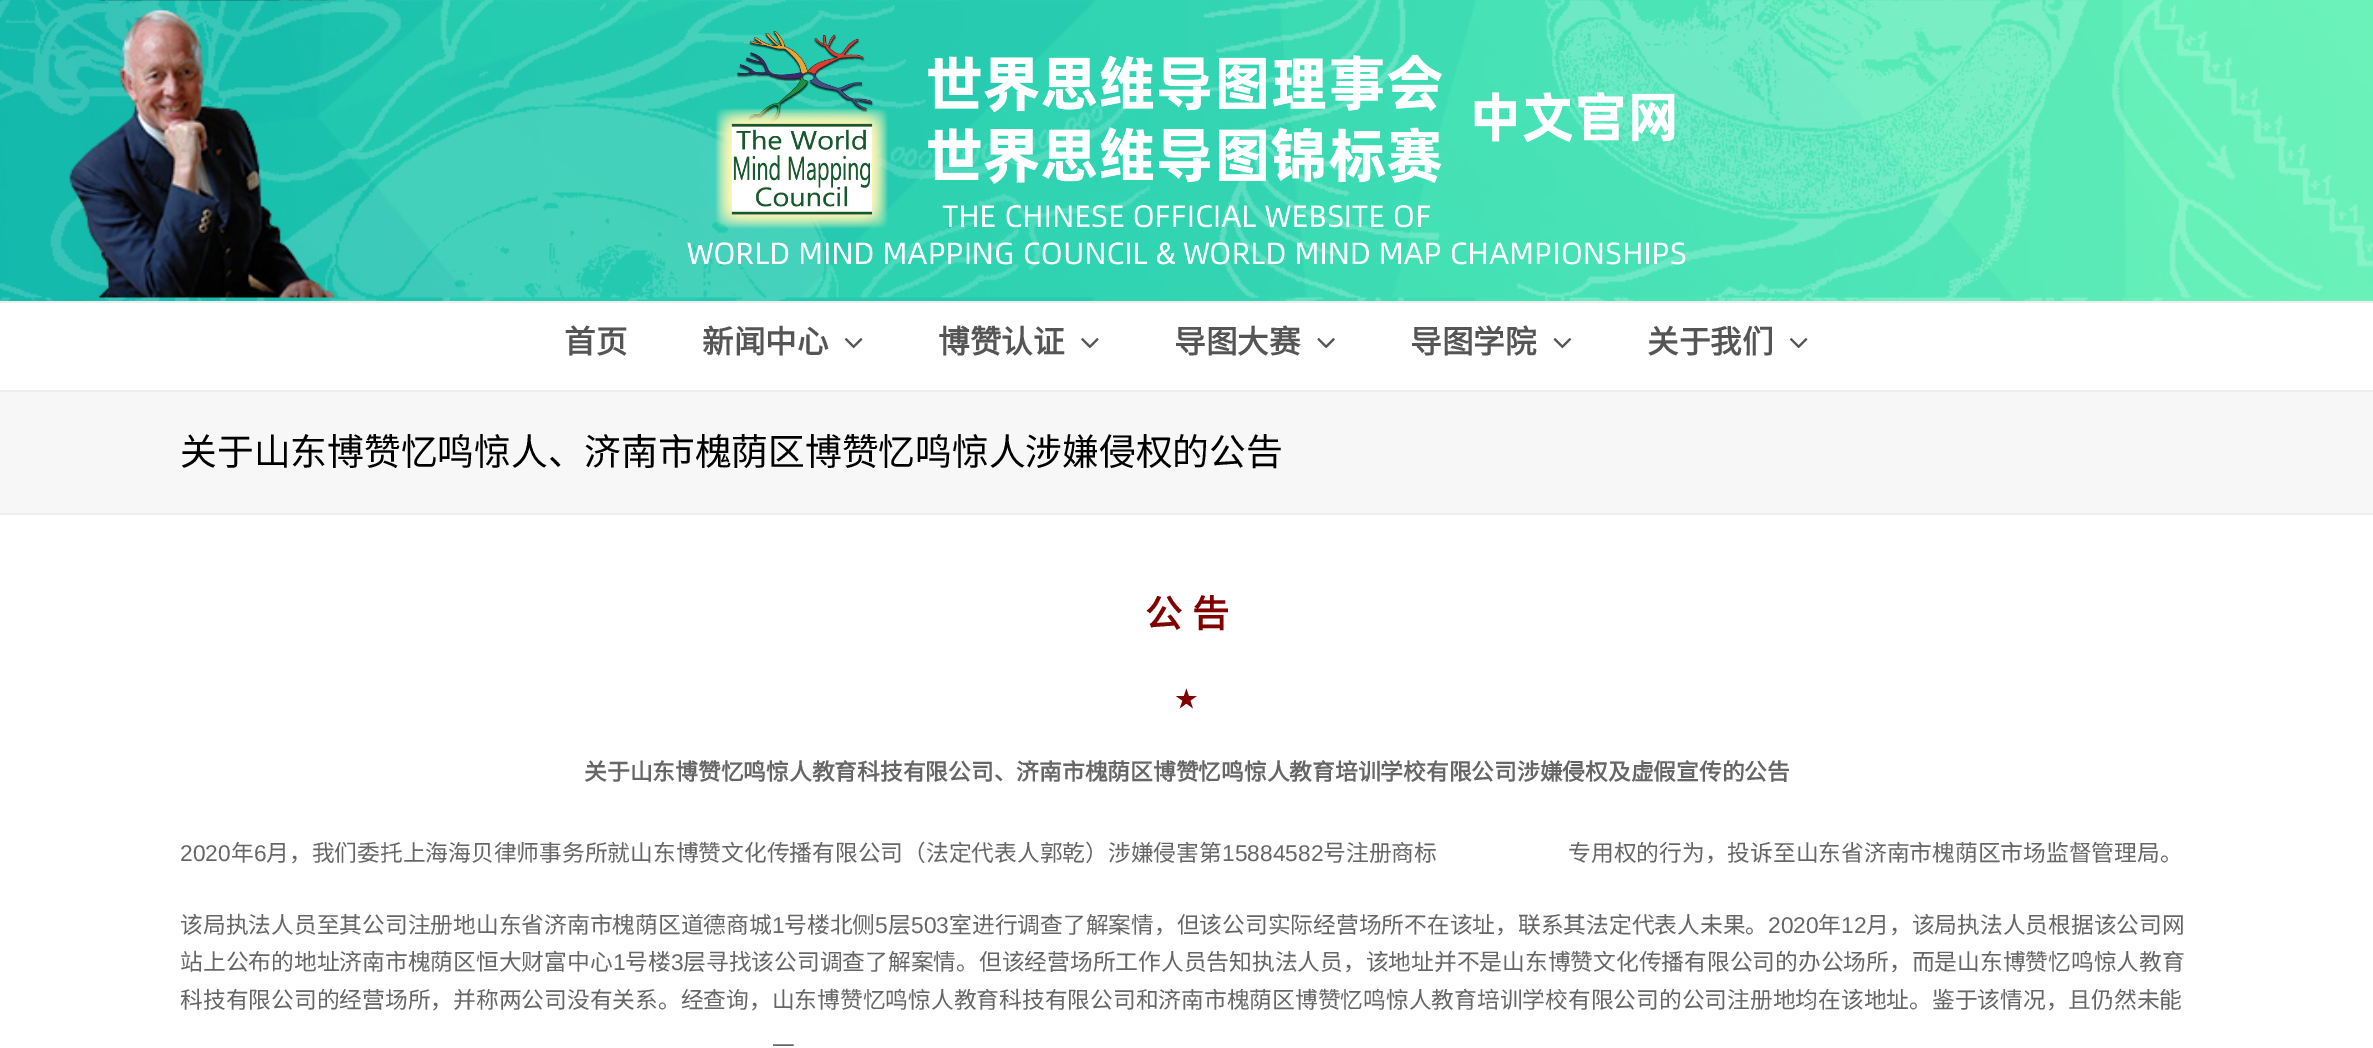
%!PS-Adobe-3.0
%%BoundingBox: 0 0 2373 1048
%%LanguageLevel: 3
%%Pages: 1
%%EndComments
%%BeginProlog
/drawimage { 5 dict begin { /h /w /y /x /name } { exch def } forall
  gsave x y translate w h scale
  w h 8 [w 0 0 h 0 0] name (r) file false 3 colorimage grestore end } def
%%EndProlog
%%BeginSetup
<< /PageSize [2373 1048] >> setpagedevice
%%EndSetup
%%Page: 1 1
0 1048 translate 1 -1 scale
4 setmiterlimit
1 setgray
0 0 2373 1048 rectfill
(images/1.raw) 0 0 2373 301 drawimage
(images/2.raw) 687 31 999 234 drawimage
0.933 setgray
0 301 2373 2 rectfill
(images/3.raw) 844 338 19 11 drawimage
(images/4.raw) 1081 338 18 11 drawimage
(images/5.raw) 1317 338 18 11 drawimage
(images/6.raw) 1553 338 19 11 drawimage
(images/3.raw) 1789 338 19 11 drawimage
0.969 setgray
0 392 2373 121 rectfill
0.933 setgray
0 390 2373 2 rectfill
0 513 2373 2 rectfill
/NotoSansCJKSC-Bold [31.5 0 0 -31.5 0 0] selectfont
0.333 setgray
564 353 moveto (首页) show
702 353 moveto (新闻中心) show
938 353 moveto (博赞认证) show
1174 353 moveto (导图大赛) show
1410 353 moveto (导图学院) show
1647 353 moveto (关于我们) show
/NotoSansCJKSC-Regular [36.75 0 0 -36.75 0 0] selectfont
0 setgray
180 465 moveto (关于山东博赞忆鸣惊人、济南市槐荫区博赞忆鸣惊人涉嫌侵权的公告) show
/NotoSansCJKSC-Bold [37 0 0 -37 0 0] selectfont
0.502 0 0 setrgbcolor
1145 627 moveto 2 0 32 (公 告) widthshow
/NotoSansCJKSC-Regular [22.75 0 0 -22.75 0 0] selectfont
1175 707 moveto (★) show
/NotoSansCJKSC-Bold [22.75 0 0 -22.75 0 0] selectfont
0.4 setgray
584 780 moveto (关于山东博赞忆鸣惊人教育科技有限公司、济南市槐荫区博赞忆鸣惊人教育培训学校有限公司涉嫌侵权及虚假宣传的公告) show
/LiberationSans-Regular [22.75 0 0 -22.75 0 0] selectfont
180 861 moveto (2020) show
/NotoSansCJKSC-Regular [22.75 0 0 -22.75 0 0] selectfont
231 861 moveto (年) show
/LiberationSans-Regular [22.75 0 0 -22.75 0 0] selectfont
254 861 moveto (6) show
/NotoSansCJKSC-Regular [22.75 0 0 -22.75 0 0] selectfont
266 861 moveto (月，我们委托上海海贝律师事务所就山东博赞文化传播有限公司（法定代表人郭乾）涉嫌侵害第) show
/LiberationSans-Regular [22.75 0 0 -22.75 0 0] selectfont
1222 861 moveto (15884582) show
/NotoSansCJKSC-Regular [22.75 0 0 -22.75 0 0] selectfont
1323 861 moveto (号注册商标) show
1568 861 moveto (专用权的行为，投诉至山东省济南市槐荫区市场监督管理局。) show
180 933 moveto (该局执法人员至其公司注册地山东省济南市槐荫区道德商城) show
/LiberationSans-Regular [22.75 0 0 -22.75 0 0] selectfont
772 933 moveto (1) show
/NotoSansCJKSC-Regular [22.75 0 0 -22.75 0 0] selectfont
784 933 moveto (号楼北侧) show
/LiberationSans-Regular [22.75 0 0 -22.75 0 0] selectfont
875 933 moveto (5) show
/NotoSansCJKSC-Regular [22.75 0 0 -22.75 0 0] selectfont
888 933 moveto (层) show
/LiberationSans-Regular [22.75 0 0 -22.75 0 0] selectfont
911 933 moveto (503) show
/NotoSansCJKSC-Regular [22.75 0 0 -22.75 0 0] selectfont
949 933 moveto (室进行调查了解案情，但该公司实际经营场所不在该址，联系其法定代表人未果。) show
/LiberationSans-Regular [22.75 0 0 -22.75 0 0] selectfont
1768 933 moveto (2020) show
/NotoSansCJKSC-Regular [22.75 0 0 -22.75 0 0] selectfont
1818 933 moveto (年) show
/LiberationSans-Regular [22.75 0 0 -22.75 0 0] selectfont
1841 933 moveto (12) show
/NotoSansCJKSC-Regular [22.75 0 0 -22.75 0 0] selectfont
1866 933 moveto (月，该局执法人员根据该公司网) show
180 970 moveto (站上公布的地址济南市槐荫区恒大财富中心) show
/LiberationSans-Regular [22.75 0 0 -22.75 0 0] selectfont
613 970 moveto (1) show
/NotoSansCJKSC-Regular [22.75 0 0 -22.75 0 0] selectfont
625 970 moveto (号楼) show
/LiberationSans-Regular [22.75 0 0 -22.75 0 0] selectfont
671 970 moveto (3) show
/NotoSansCJKSC-Regular [22.75 0 0 -22.75 0 0] selectfont
683 970 moveto (层寻找该公司调查了解案情。但该经营场所工作人员告知执法人员，该地址并不是山东博赞文化传播有限公司的办公场所，而是山东博赞忆鸣惊人教育) show
180 1008 moveto (科技有限公司的经营场所，并称两公司没有关系。经查询，山东博赞忆鸣惊人教育科技有限公司和济南市槐荫区博赞忆鸣惊人教育培训学校有限公司的公司注册地均在该地址。鉴于该情况，且仍然未能) show
772 1054 moveto (一) show
showpage
%%EOF
